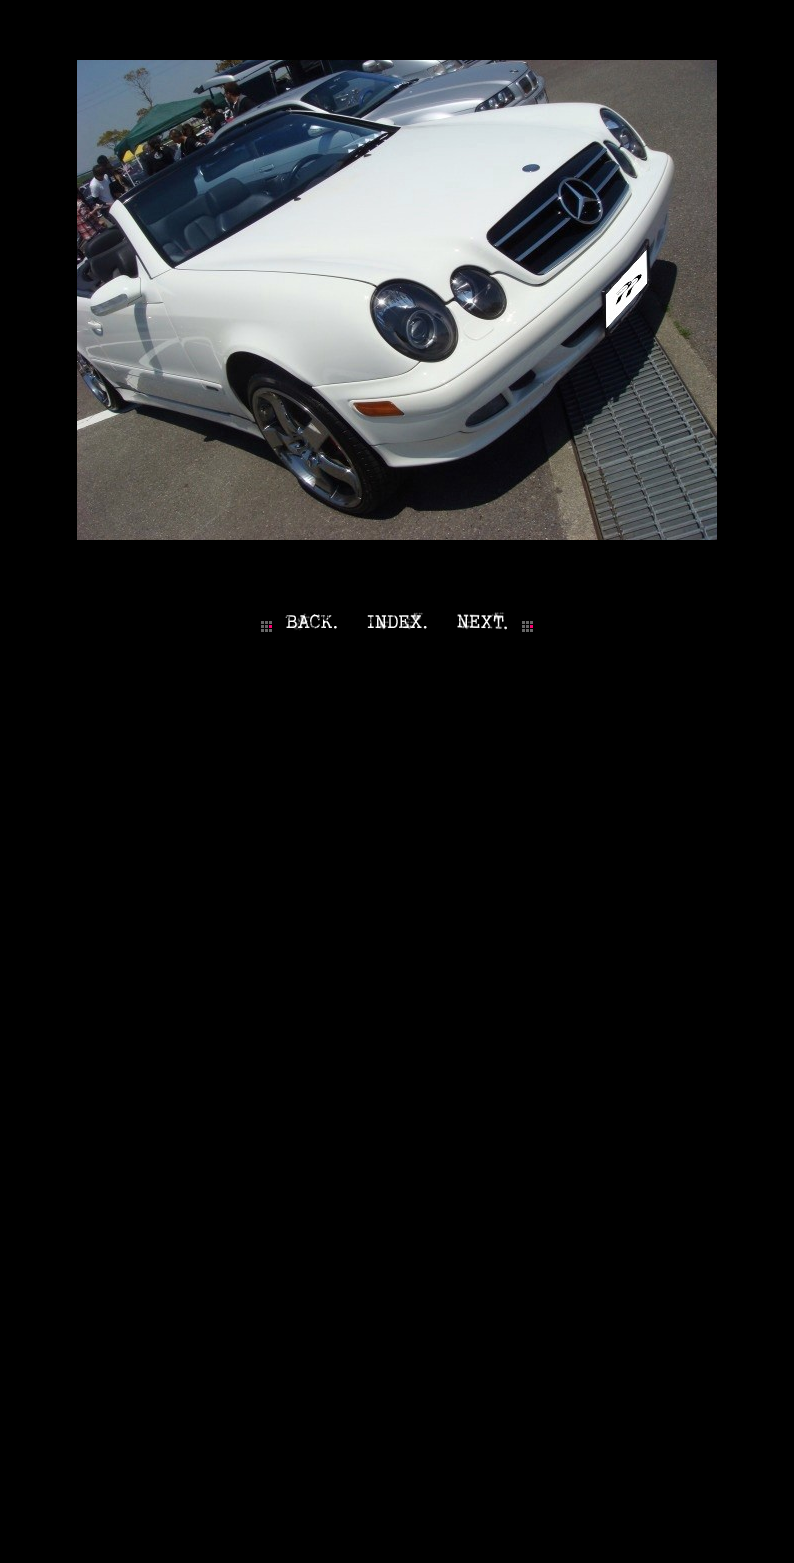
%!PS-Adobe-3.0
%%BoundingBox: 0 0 794 1563
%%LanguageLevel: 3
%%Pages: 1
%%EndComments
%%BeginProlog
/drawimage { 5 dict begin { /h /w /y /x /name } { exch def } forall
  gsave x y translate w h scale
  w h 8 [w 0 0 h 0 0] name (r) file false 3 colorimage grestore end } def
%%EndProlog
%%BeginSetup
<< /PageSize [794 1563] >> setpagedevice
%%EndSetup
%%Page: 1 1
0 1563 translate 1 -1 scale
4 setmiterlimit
0 setgray
0 0 794 1563 rectfill
(images/1.raw) 77 60 640 480 drawimage
(images/2.raw) 261 621 11 11 drawimage
(images/3.raw) 285 613 52 18 drawimage
(images/4.raw) 367 612 60 18 drawimage
(images/5.raw) 457 612 50 18 drawimage
(images/2.raw) 522 621 11 11 drawimage
showpage
%%EOF
